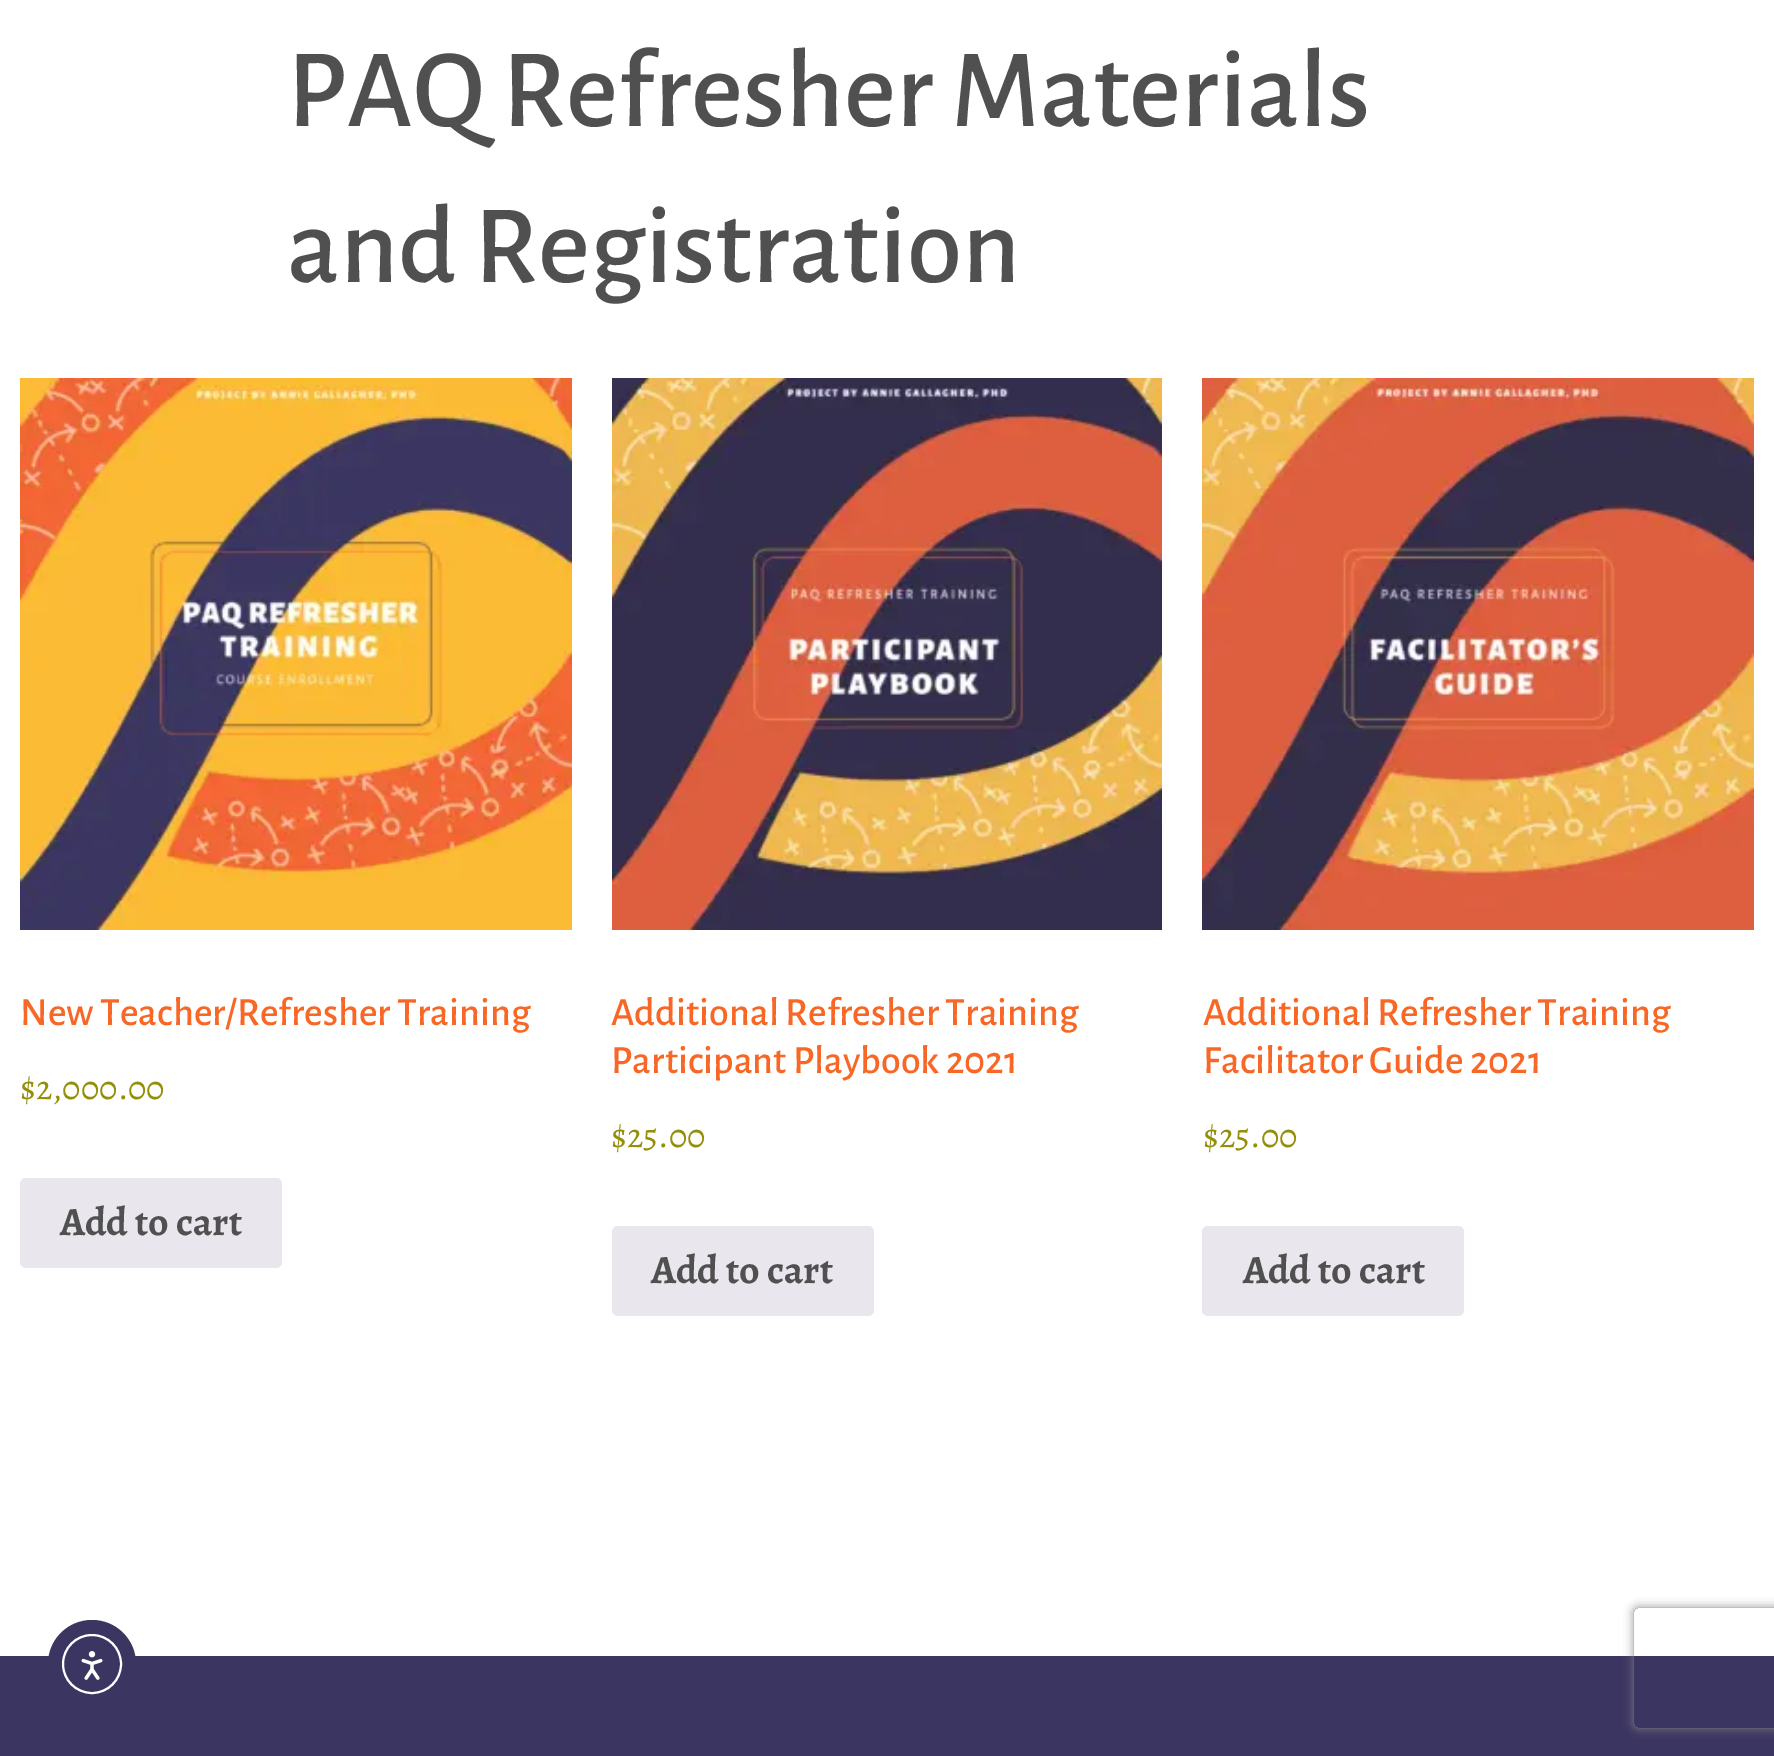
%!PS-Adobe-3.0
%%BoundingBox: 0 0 1774 1756
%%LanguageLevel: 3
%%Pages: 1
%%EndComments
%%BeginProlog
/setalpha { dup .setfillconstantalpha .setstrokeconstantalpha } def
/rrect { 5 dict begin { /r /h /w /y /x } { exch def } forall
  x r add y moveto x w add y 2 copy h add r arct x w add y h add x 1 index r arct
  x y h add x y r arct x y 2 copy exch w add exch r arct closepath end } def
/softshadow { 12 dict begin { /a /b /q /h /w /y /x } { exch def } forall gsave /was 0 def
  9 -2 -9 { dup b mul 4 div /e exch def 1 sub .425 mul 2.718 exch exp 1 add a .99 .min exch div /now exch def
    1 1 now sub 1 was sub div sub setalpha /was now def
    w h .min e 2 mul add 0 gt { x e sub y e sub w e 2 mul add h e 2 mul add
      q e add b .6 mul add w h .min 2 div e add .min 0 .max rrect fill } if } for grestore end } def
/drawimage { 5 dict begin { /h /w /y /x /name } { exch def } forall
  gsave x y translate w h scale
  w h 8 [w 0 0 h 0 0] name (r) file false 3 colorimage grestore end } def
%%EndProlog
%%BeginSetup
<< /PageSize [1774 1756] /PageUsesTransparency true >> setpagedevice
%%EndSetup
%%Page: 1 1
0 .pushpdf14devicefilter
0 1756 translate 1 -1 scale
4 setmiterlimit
1 setgray
0 0 1774 1756 rectfill
(images/1.raw) 20 378 552 552 drawimage
0.914 0.902 0.929 setrgbcolor
20 1178 262 90 6 rrect fill
(images/2.raw) 612 378 550 552 drawimage
612 1226 262 90 6 rrect fill
(images/3.raw) 1202 378 552 552 drawimage
1202 1226 262 90 6 rrect fill
0.231 0.208 0.38 setrgbcolor
0 1656 1774 100 rectfill
0.231 0.208 0.384 setrgbcolor
newpath 92 1664 44 0 360 arc closepath fill
1 setgray
2 setlinewidth
newpath 92 1664 29 0 360 arc closepath stroke
(images/4.raw) 81 1651 22 29 drawimage
gsave
newpath 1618 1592 moveto 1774 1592 lineto 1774 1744 lineto 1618 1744 lineto closepath 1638 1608 moveto 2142 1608 lineto 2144 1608 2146 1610 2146 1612 curveto 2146 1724 lineto 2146 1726 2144 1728 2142 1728 curveto 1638 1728 lineto 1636 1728 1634 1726 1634 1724 curveto 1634 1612 lineto 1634 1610 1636 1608 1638 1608 curveto closepath eoclip newpath
0.502 setgray
1634 1608 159 120 4 5 1 softshadow
grestore
/AlegreyaSans-Medium [112 0 0 -112 0 0] selectfont
0.314 setgray
287 126 moveto (PAQ Refresher Materials) show
287 282 moveto (and Registration) show
/AlegreyaSans-Medium [40 0 0 -40 0 0] selectfont
0.973 0.404 0.145 setrgbcolor
20 1025 moveto (New Teacher/Refresher Training) show
/Alegreya-Regular [34.5 0 0 -34.5 0 0] selectfont
0.584 0.557 0.035 setrgbcolor
20 1099 moveto ($2,000.00) show
/Alegreya-Bold [40 0 0 -40 0 0] selectfont
0.314 setgray
60 1235 moveto (Add to cart) show
/AlegreyaSans-Medium [40 0 0 -40 0 0] selectfont
0.973 0.404 0.145 setrgbcolor
611 1025 moveto (Additional Refresher Training) show
611 1073 moveto (Participant Playbook 2021) show
/Alegreya-Regular [34.5 0 0 -34.5 0 0] selectfont
0.584 0.557 0.035 setrgbcolor
611 1147 moveto ($25.00) show
/Alegreya-Bold [40 0 0 -40 0 0] selectfont
0.314 setgray
651 1283 moveto (Add to cart) show
/AlegreyaSans-Medium [40 0 0 -40 0 0] selectfont
0.973 0.404 0.145 setrgbcolor
1203 1025 moveto (Additional Refresher Training) show
1203 1073 moveto (Facilitator Guide 2021) show
/Alegreya-Regular [34.5 0 0 -34.5 0 0] selectfont
0.584 0.557 0.035 setrgbcolor
1203 1147 moveto ($25.00) show
/Alegreya-Bold [40 0 0 -40 0 0] selectfont
0.314 setgray
1243 1283 moveto (Add to cart) show
.poppdf14devicefilter showpage
%%EOF
